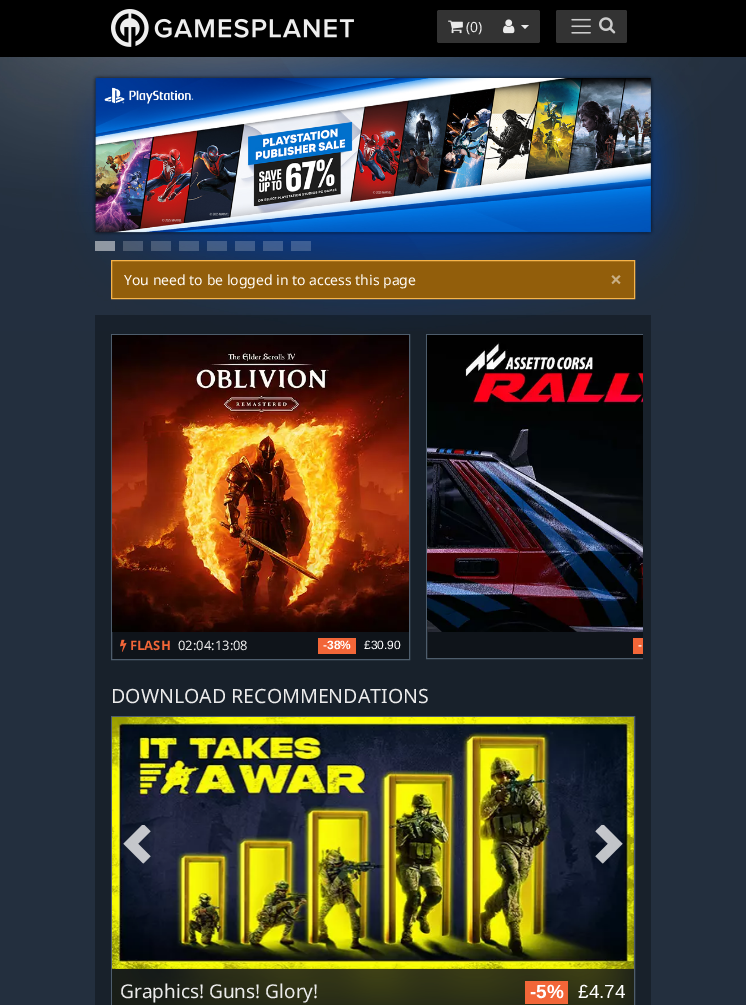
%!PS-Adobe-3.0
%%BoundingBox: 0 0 746 1005
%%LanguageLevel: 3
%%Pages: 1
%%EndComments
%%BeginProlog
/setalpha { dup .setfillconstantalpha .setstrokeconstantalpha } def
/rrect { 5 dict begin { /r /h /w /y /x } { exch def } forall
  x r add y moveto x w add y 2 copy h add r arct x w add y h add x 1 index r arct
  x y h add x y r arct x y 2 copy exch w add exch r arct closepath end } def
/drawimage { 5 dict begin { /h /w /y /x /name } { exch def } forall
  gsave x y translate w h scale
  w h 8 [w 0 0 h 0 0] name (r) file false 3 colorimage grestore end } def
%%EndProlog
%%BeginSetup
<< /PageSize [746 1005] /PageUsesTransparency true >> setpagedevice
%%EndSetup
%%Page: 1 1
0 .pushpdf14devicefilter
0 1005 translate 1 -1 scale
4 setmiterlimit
0.137 0.184 0.243 setrgbcolor
0 0 746 1005 rectfill
0 setgray
0 0 746 57 rectfill
(images/1.raw) 111 9 243 38 drawimage
0.2 setgray
newpath 439 10 moveto 493 10 lineto 493 43 lineto 439 43 lineto 438 43 437 42 437 41 curveto 437 12 lineto 437 11 438 10 439 10 curveto closepath fill
(images/2.raw) 448 20 15 14 drawimage
newpath 492 10 moveto 538 10 lineto 539 10 540 11 540 12 curveto 540 41 lineto 540 42 539 43 538 43 curveto 492 43 lineto closepath fill
(images/3.raw) 503 19 12 15 drawimage
0.922 setgray
newpath 521 25 moveto 529 25 lineto 525 29 lineto closepath fill
0.2 setgray
556 10 71 33 2 rrect fill
(images/4.raw) 571 18 20 16 drawimage
(images/5.raw) 599 17 17 17 drawimage
(images/6.raw) 0 57 746 274 drawimage
0.5 setalpha
1 setgray
95 241 20 10 rectfill
0.2 setalpha
123 241 20 10 rectfill
151 241 20 10 rectfill
179 241 20 10 rectfill
207 241 20 10 rectfill
235 241 20 10 rectfill
263 241 20 10 rectfill
291 241 20 10 rectfill
1 setalpha
0.573 0.369 0.043 setrgbcolor
newpath 111.5 260.5 moveto 634.5 260.5 lineto 634.5 298.5 lineto 111.5 298.5 lineto closepath gsave fill grestore
0.965 0.706 0.294 setrgbcolor
stroke
0.3 setalpha
0 setgray
95 315 556 690 rectfill
1 setalpha
0.059 0.078 0.102 setrgbcolor
112 632 297 27 rectfill
0.306 0.365 0.424 setrgbcolor
111.5 334.5 298 325 rectstroke
(images/7.raw) 112 335 297 297 drawimage
(images/8.raw) 120 639 7 13 drawimage
0.949 0.4 0.22 setrgbcolor
318 638 38 16 rectfill
0.059 0.078 0.102 setrgbcolor
427 632 216 26 rectfill
gsave
103 334 540 342 rectclip
0.306 0.365 0.424 setrgbcolor
426.5 334.5 298 324 rectstroke
grestore
(images/9.raw) 427 335 216 297 drawimage
0.949 0.4 0.22 setrgbcolor
633 638 10 16 rectfill
0.306 0.365 0.424 setrgbcolor
111.5 716.5 523 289 rectstroke
0.059 0.078 0.102 setrgbcolor
112 717 522 288 rectfill
(images/12.raw) 112 717 522 288 drawimage
(images/13.raw) 112 717 522 252 drawimage
(images/10.raw) 123 825 28 39 drawimage
(images/11.raw) 595 825 28 39 drawimage
0.949 0.4 0.22 setrgbcolor
525 981 43 23 rectfill
/NotoSans-Regular [14 0 0 -14 0 0] selectfont
0.922 setgray
466 32 moveto (\(0\)) show
1 0.984 0.965 setrgbcolor
124 285 moveto (You need to be logged in to access this page) show
/NotoSans-Bold [21 0 0 -21 0 0] selectfont
0.788 0.686 0.522 setrgbcolor
610 287 moveto (×) show
/NotoSans-Bold [13 0 0 -13 0 0] selectfont
0.949 0.4 0.22 setrgbcolor
130 650 moveto (FLASH) show
/NotoSans-Regular [13 0 0 -13 0 0] selectfont
0.922 setgray
178 650 moveto (02:04:13:08) show
/LiberationSans-Bold [12 0 0 -12 0 0] selectfont
1 setgray
323 649 moveto (-38%) show
/LiberationSans-Regular [12 0 0 -12 0 0] selectfont
364 649 moveto (£30.90) show
/LiberationSans-Bold [12 0 0 -12 0 0] selectfont
638 649 moveto (-) show
/NotoSans-Regular [19.6 0 0 -19.6 0 0] selectfont
0.922 setgray
111 703 moveto (DOWNLOAD RECOMMENDATIONS) show
/NotoSans-Regular [19 0 0 -19 0 0] selectfont
120 998 moveto (Graphics! Guns! Glory!) show
/LiberationSans-Bold [19 0 0 -19 0 0] selectfont
1 setgray
530 998 moveto (-5%) show
/LiberationSans-Regular [19 0 0 -19 0 0] selectfont
578 998 moveto (£4.74) show
.poppdf14devicefilter showpage
%%EOF
